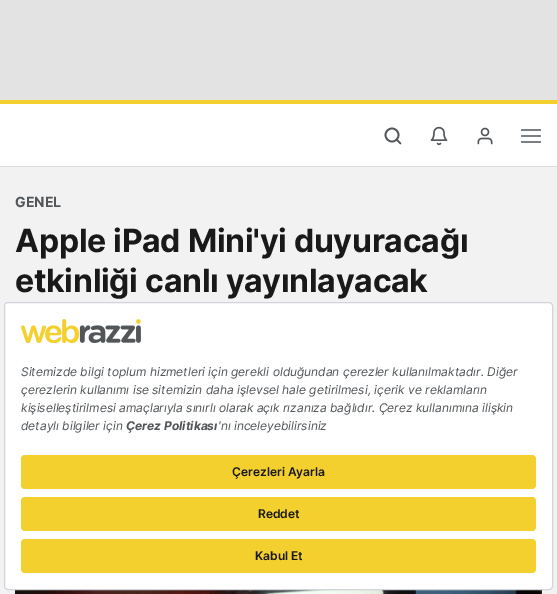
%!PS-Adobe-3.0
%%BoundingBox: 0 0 557 594
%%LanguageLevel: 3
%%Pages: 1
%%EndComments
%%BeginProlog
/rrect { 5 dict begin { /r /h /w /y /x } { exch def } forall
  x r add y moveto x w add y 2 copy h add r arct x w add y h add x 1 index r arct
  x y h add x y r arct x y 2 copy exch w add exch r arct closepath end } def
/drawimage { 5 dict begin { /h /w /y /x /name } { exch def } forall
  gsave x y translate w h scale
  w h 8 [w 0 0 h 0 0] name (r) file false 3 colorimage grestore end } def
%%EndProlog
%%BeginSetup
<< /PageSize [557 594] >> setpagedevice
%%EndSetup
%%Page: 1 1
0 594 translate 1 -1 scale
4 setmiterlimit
0.949 0.949 0.953 setrgbcolor
0 0 557 594 rectfill
0.89 setgray
0 0 557 100 rectfill
0.863 0.867 0.875 setrgbcolor
0 166 557 1 rectfill
1 setgray
0 104 557 62 rectfill
0.953 0.816 0.18 setrgbcolor
0 100 557 4 rectfill
0.322 0.337 0.349 setrgbcolor
1.7 setlinewidth
newpath 392 135 6.5 0 360 arc closepath stroke
1 setlinecap
1 setlinejoin
newpath 400.5 143.5 moveto 397 140 lineto stroke
(images/1.raw) 430 126 18 20 drawimage
(images/2.raw) 477 127 16 18 drawimage
0.478 0.502 0.522 setrgbcolor
521 129 20 2 1 rrect fill
521 135 20 2 1 rrect fill
521 141 20 2 1 rrect fill
(images/3.raw) 15 590 527 4 drawimage
1 setgray
4.5 302.5 548 287 3.5 rrect gsave fill grestore
0.82 0.835 0.859 setrgbcolor
1 setlinewidth
0 setlinecap
0 setlinejoin
stroke
(images/4.raw) 21 319 120 24 drawimage
0.953 0.816 0.18 setrgbcolor
21 455 515 34 4 rrect fill
21 497 515 34 4 rrect fill
21 539 515 34 4 rrect fill
/Inter-Bold [14 0 0 -14 0 0] selectfont
0.322 0.337 0.349 setrgbcolor
15 207 moveto (GENEL) show
/Inter-Bold [32 0 0 -32 0 0] selectfont
0.098 0.098 0.102 setrgbcolor
15 252 moveto -0.25 0 (Apple iPad Mini'yi duyuracağı) ashow
15 292 moveto -0.25 0 (etkinliği canlı yayınlayacak) ashow
/Inter-Italic [12 0 0 -12 0 0] selectfont
0.322 0.337 0.349 setrgbcolor
21 376 moveto (Sitemizde bilgi toplum hizmetleri için gerekli olduğundan çerezler kullanılmaktadır. Diğer) show
21 394 moveto (çerezlerin kullanımı ise sitemizin daha işlevsel hale getirilmesi, içerik ve reklamların) show
21 412 moveto (kişiselleştirilmesi amaçlarıyla sınırlı olarak açık rızanıza bağlıdır. Çerez kullanımına ilişkin) show
21 430 moveto (detaylı bilgiler için) show
/Inter-BoldItalic [12 0 0 -12 0 0] selectfont
126 430 moveto (Çerez Politikası) show
/Inter-Italic [12 0 0 -12 0 0] selectfont
218 430 moveto ('nı inceleyebilirsiniz) show
/Inter-SemiBold [12 0 0 -12 0 0] selectfont
0.098 0.098 0.102 setrgbcolor
232 476 moveto (Çerezleri Ayarla) show
258 518 moveto (Reddet) show
255 560 moveto (Kabul Et) show
showpage
%%EOF
